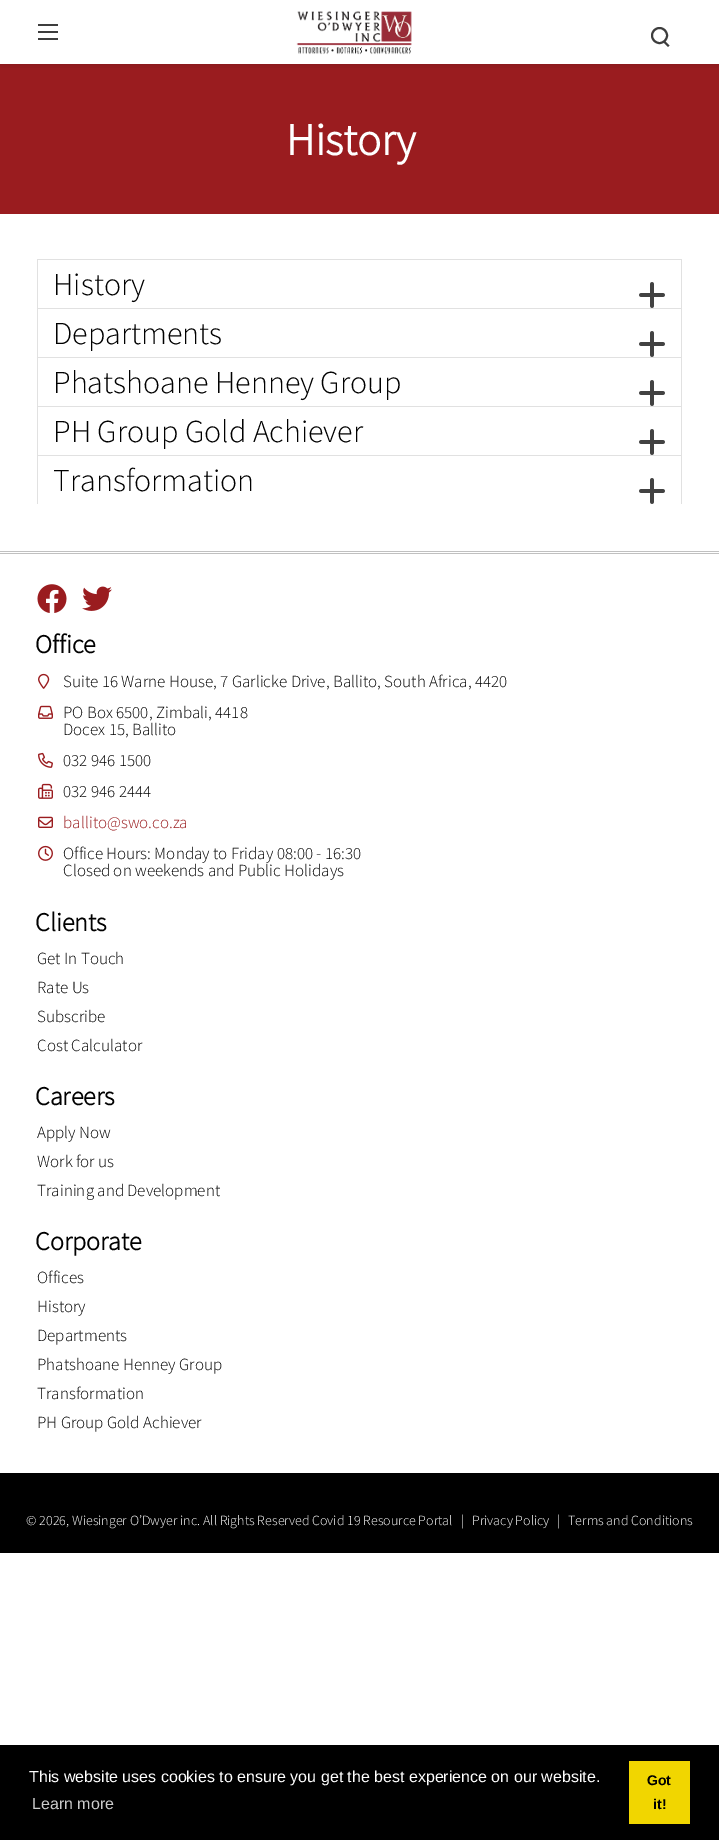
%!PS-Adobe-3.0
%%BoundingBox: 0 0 719 1840
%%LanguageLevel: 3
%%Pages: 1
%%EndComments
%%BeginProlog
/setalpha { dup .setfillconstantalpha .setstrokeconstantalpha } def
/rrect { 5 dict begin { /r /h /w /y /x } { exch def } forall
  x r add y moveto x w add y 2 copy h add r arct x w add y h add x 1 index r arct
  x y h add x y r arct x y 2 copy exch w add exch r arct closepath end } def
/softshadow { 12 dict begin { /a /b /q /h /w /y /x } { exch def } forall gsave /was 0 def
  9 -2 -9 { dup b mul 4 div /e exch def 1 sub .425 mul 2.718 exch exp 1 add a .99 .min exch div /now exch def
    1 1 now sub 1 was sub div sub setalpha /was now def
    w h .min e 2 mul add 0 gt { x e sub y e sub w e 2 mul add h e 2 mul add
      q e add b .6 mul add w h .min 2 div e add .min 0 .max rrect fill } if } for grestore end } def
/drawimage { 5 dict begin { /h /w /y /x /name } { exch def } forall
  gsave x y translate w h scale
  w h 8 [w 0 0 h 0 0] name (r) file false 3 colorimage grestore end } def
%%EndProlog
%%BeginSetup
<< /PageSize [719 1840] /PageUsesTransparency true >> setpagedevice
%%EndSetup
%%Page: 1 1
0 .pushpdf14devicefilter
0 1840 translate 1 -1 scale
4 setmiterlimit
1 setgray
0 0 719 1840 rectfill
0.604 0.11 0.122 setrgbcolor
0 64 719 150 rectfill
gsave
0 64 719 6 rectclip
0 setgray
0 0 719 64 0 5 0.2 softshadow
grestore
0.239 setgray
38 24 20 2 rectfill
38 31 20 2 rectfill
38 38 20 2 rectfill
(images/1.raw) 296 11 116 44 drawimage
newpath 664.5 40.5 moveto 669.5 45.5 lineto 668 47 lineto 663 42 lineto closepath fill
2 setlinewidth
newpath 659.5 35.5 7.5 0 360 arc closepath stroke
0.753 setgray
0 551 719 1 rectfill
0.882 setgray
37 259 645 1 rectfill
681 259 1 49 rectfill
37 259 1 49 rectfill
(images/2.raw) 639 282 26 26 drawimage
37 308 645 1 rectfill
681 308 1 49 rectfill
37 308 1 49 rectfill
(images/2.raw) 639 331 26 26 drawimage
37 357 645 1 rectfill
681 357 1 49 rectfill
37 357 1 49 rectfill
(images/2.raw) 639 380 26 26 drawimage
37 406 645 1 rectfill
681 406 1 49 rectfill
37 406 1 49 rectfill
(images/2.raw) 639 429 26 26 drawimage
37 455 645 1 rectfill
681 455 1 49 rectfill
37 455 1 49 rectfill
(images/2.raw) 639 478 26 26 drawimage
0.753 setgray
0 553 719 1 rectfill
(images/3.raw) 37 584 30 29 drawimage
(images/4.raw) 82 586 30 25 drawimage
(images/5.raw) 38 673 12 16 drawimage
(images/6.raw) 38 705 15 14 drawimage
(images/7.raw) 38 752 15 16 drawimage
(images/8.raw) 38 783 15 16 drawimage
(images/9.raw) 38 816 15 12 drawimage
(images/10.raw) 38 845 15 16 drawimage
0 setgray
0 1473 719 80 rectfill
0 1745 719 95 rectfill
0.945 0.839 0 setrgbcolor
629 1761 61 63 rectfill
/SourceSansPro-Bold [45 0 0 -45 0 0] selectfont
1 setgray
286 155 moveto (History) show
/SourceSansPro-Light [32 0 0 -32 0 0] selectfont
0 setgray
53 295 moveto (History) show
53 344 moveto (Departments) show
53 393 moveto (Phatshoane Henney Group) show
53 442 moveto (PH Group Gold Achiever) show
53 491 moveto (Transformation) show
/SourceSansPro-Bold [26 0 0 -26 0 0] selectfont
35 653 moveto (Office) show
/SourceSansPro-Light [17 0 0 -17 0 0] selectfont
63 687 moveto (Suite 16 Warne House, 7 Garlicke Drive, Ballito, South Africa, 4420) show
63 718 moveto (PO Box 6500, Zimbali, 4418) show
63 735 moveto (Docex 15, Ballito) show
63 766 moveto (032 946 1500) show
63 797 moveto (032 946 2444) show
0.604 0.11 0.122 setrgbcolor
63 828 moveto (ballito@swo.co.za) show
0 setgray
63 859 moveto (Office Hours: Monday to Friday 08:00 - 16:30) show
63 876 moveto (Closed on weekends and Public Holidays) show
/SourceSansPro-Bold [26 0 0 -26 0 0] selectfont
35 931 moveto (Clients) show
/SourceSansPro-Light [17 0 0 -17 0 0] selectfont
37 964 moveto (Get In Touch) show
37 993 moveto (Rate Us) show
37 1022 moveto (Subscribe) show
37 1051 moveto (Cost Calculator) show
/SourceSansPro-Bold [26 0 0 -26 0 0] selectfont
35 1105 moveto (Careers) show
/SourceSansPro-Light [17 0 0 -17 0 0] selectfont
37 1138 moveto (Apply Now) show
37 1167 moveto (Work for us) show
37 1196 moveto (Training and Development) show
/SourceSansPro-Bold [26 0 0 -26 0 0] selectfont
35 1250 moveto (Corporate) show
/SourceSansPro-Light [17 0 0 -17 0 0] selectfont
37 1283 moveto (Offices) show
37 1312 moveto (History) show
37 1341 moveto (Departments) show
37 1370 moveto (Phatshoane Henney Group) show
37 1399 moveto (Transformation) show
37 1428 moveto (PH Group Gold Achiever) show
/SourceSansPro-Light [14 0 0 -14 0 0] selectfont
1 setgray
26 1525 moveto (© 2026, Wiesinger O’Dwyer inc. All Rights Reserved Covid 19 Resource Portal) show
461 1525 moveto (|) show
472 1525 moveto (Privacy Policy) show
557 1525 moveto (|) show
568 1525 moveto (Terms and Conditions) show
/LiberationSans-Regular [16 0 0 -16 0 0] selectfont
29 1782 moveto (This website uses cookies to ensure you get the best experience on our website.) show
0.8 setgray
32 1809 moveto (Learn more) show
/LiberationSans-Bold [14 0 0 -14 0 0] selectfont
0 setgray
647 1785 moveto (Got) show
653 1809 moveto (it!) show
.poppdf14devicefilter showpage
%%EOF
